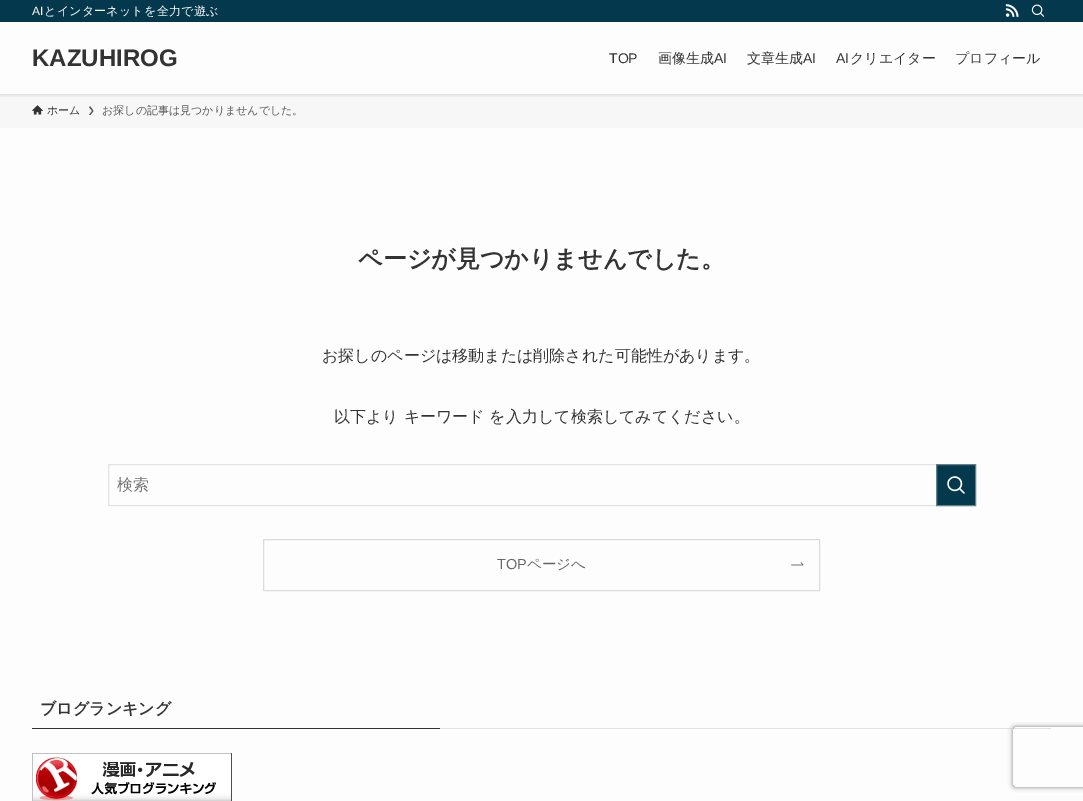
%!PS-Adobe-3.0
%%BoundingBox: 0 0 1083 801
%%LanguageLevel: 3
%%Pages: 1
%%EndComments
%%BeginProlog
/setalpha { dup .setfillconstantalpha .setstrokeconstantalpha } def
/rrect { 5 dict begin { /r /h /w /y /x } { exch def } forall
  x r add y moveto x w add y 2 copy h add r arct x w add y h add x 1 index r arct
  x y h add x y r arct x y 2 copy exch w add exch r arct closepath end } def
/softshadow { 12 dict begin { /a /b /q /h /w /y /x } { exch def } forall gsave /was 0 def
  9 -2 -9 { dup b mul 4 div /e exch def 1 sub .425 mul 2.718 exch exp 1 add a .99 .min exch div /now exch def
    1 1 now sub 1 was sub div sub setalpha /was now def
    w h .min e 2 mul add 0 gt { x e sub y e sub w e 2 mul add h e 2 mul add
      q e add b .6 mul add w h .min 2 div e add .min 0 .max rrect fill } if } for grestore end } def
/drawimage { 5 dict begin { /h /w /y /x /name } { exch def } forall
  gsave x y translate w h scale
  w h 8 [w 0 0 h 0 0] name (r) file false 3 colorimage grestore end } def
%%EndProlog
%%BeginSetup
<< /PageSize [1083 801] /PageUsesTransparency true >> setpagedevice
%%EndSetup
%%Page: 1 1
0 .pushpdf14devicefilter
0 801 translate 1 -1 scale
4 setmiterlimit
0.992 setgray
0 0 1083 801 rectfill
0.969 setgray
0 94 1083 34 rectfill
gsave
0 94 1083 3 rectclip
0 setgray
0 1 1083 94 0 2 0.12 softshadow
grestore
0.016 0.22 0.298 setrgbcolor
0 0 1083 22 rectfill
(images/1.raw) 1005 4 14 13 drawimage
(images/2.raw) 1031 4 14 13 drawimage
(images/3.raw) 32 105 11 10 drawimage
0.353 setgray
newpath 90.5 106.5 moveto 89 107 lineto 92 111 lineto 89 115 lineto 90.5 115 lineto 93.5 111 lineto closepath fill
0.89 setgray
108.5 464.5 867 41 rectstroke
0.016 0.22 0.298 setrgbcolor
newpath 936.5 464.5 moveto 975.5 464.5 lineto 975.5 505.5 lineto 936.5 505.5 lineto closepath gsave fill grestore
0.4 0.502 0.541 setrgbcolor
stroke
(images/4.raw) 947 476 18 18 drawimage
0.863 setgray
263.5 539.5 556 51 rectstroke
(images/5.raw) 791 562 13 4 drawimage
0.2 setgray
32 728 408 1 rectfill
gsave
newpath 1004 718 moveto 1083 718 lineto 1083 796 lineto 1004 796 lineto closepath 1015 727 moveto 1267 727 lineto 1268 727 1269 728 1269 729 curveto 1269 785 lineto 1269 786 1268 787 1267 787 curveto 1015 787 lineto 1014 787 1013 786 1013 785 curveto 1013 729 lineto 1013 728 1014 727 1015 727 curveto closepath eoclip newpath
0.502 setgray
1013 727 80 60 2 2.5 1 softshadow
grestore
0.5 setalpha
0.78 setgray
440 728 611 1 rectfill
1 setalpha
(images/6.raw) 32 753 200 48 drawimage
/LiberationSans-Regular [12 0 0 -12 0 0] selectfont
1 setgray
32 15 moveto 0.25 0 (AI) ashow
/WenQuanYiZenHei-Medium [12 0 0 -12 0 0] selectfont
44 15 moveto 0.25 0 (とインターネットを全力で遊ぶ) ashow
/LiberationSans-Bold [24 0 0 -24 0 0] selectfont
0.2 setgray
32 66 moveto (KAZUHIROG) show
/LiberationSans-Regular [14 0 0 -14 0 0] selectfont
609 63 moveto (TOP) show
/WenQuanYiZenHei-Medium [14 0 0 -14 0 0] selectfont
658 63 moveto (画像生成) show
/LiberationSans-Regular [14 0 0 -14 0 0] selectfont
714 63 moveto (AI) show
/WenQuanYiZenHei-Medium [14 0 0 -14 0 0] selectfont
747 63 moveto (文章生成) show
/LiberationSans-Regular [14 0 0 -14 0 0] selectfont
803 63 moveto (AI) show
836 63 moveto (AI) show
/WenQuanYiZenHei-Medium [14 0 0 -14 0 0] selectfont
850 63 moveto (クリエイター) show
955 63 moveto (プロフィール) show
/WenQuanYiZenHei-Medium [11 0 0 -11 0 0] selectfont
47 114 moveto (ホーム) show
0.353 setgray
102 114 moveto (お探しの記事は見つかりませんでした。) show
/WenQuanYiZenHei-Bold [24 0 0 -24 0 0] selectfont
0.2 setgray
358 267 moveto (ページが見つかりませんでした。) show
/WenQuanYiZenHei-Medium [16 0 0 -16 0 0] selectfont
322 361 moveto (お探しのページは移動または削除された可能性があります。) show
334 422 moveto (以下より キーワード を入力して検索してみてください。) show
0.459 setgray
117 490 moveto (検索) show
/LiberationSans-Regular [14.5 0 0 -14.5 0 0] selectfont
0.4 setgray
497 569 moveto (TOP) show
/WenQuanYiZenHei-Medium [14.5 0 0 -14.5 0 0] selectfont
527 569 moveto (ページへ) show
/WenQuanYiZenHei-Bold [16 0 0 -16 0 0] selectfont
0.2 setgray
40 714 moveto (ブログランキング) show
.poppdf14devicefilter showpage
%%EOF
